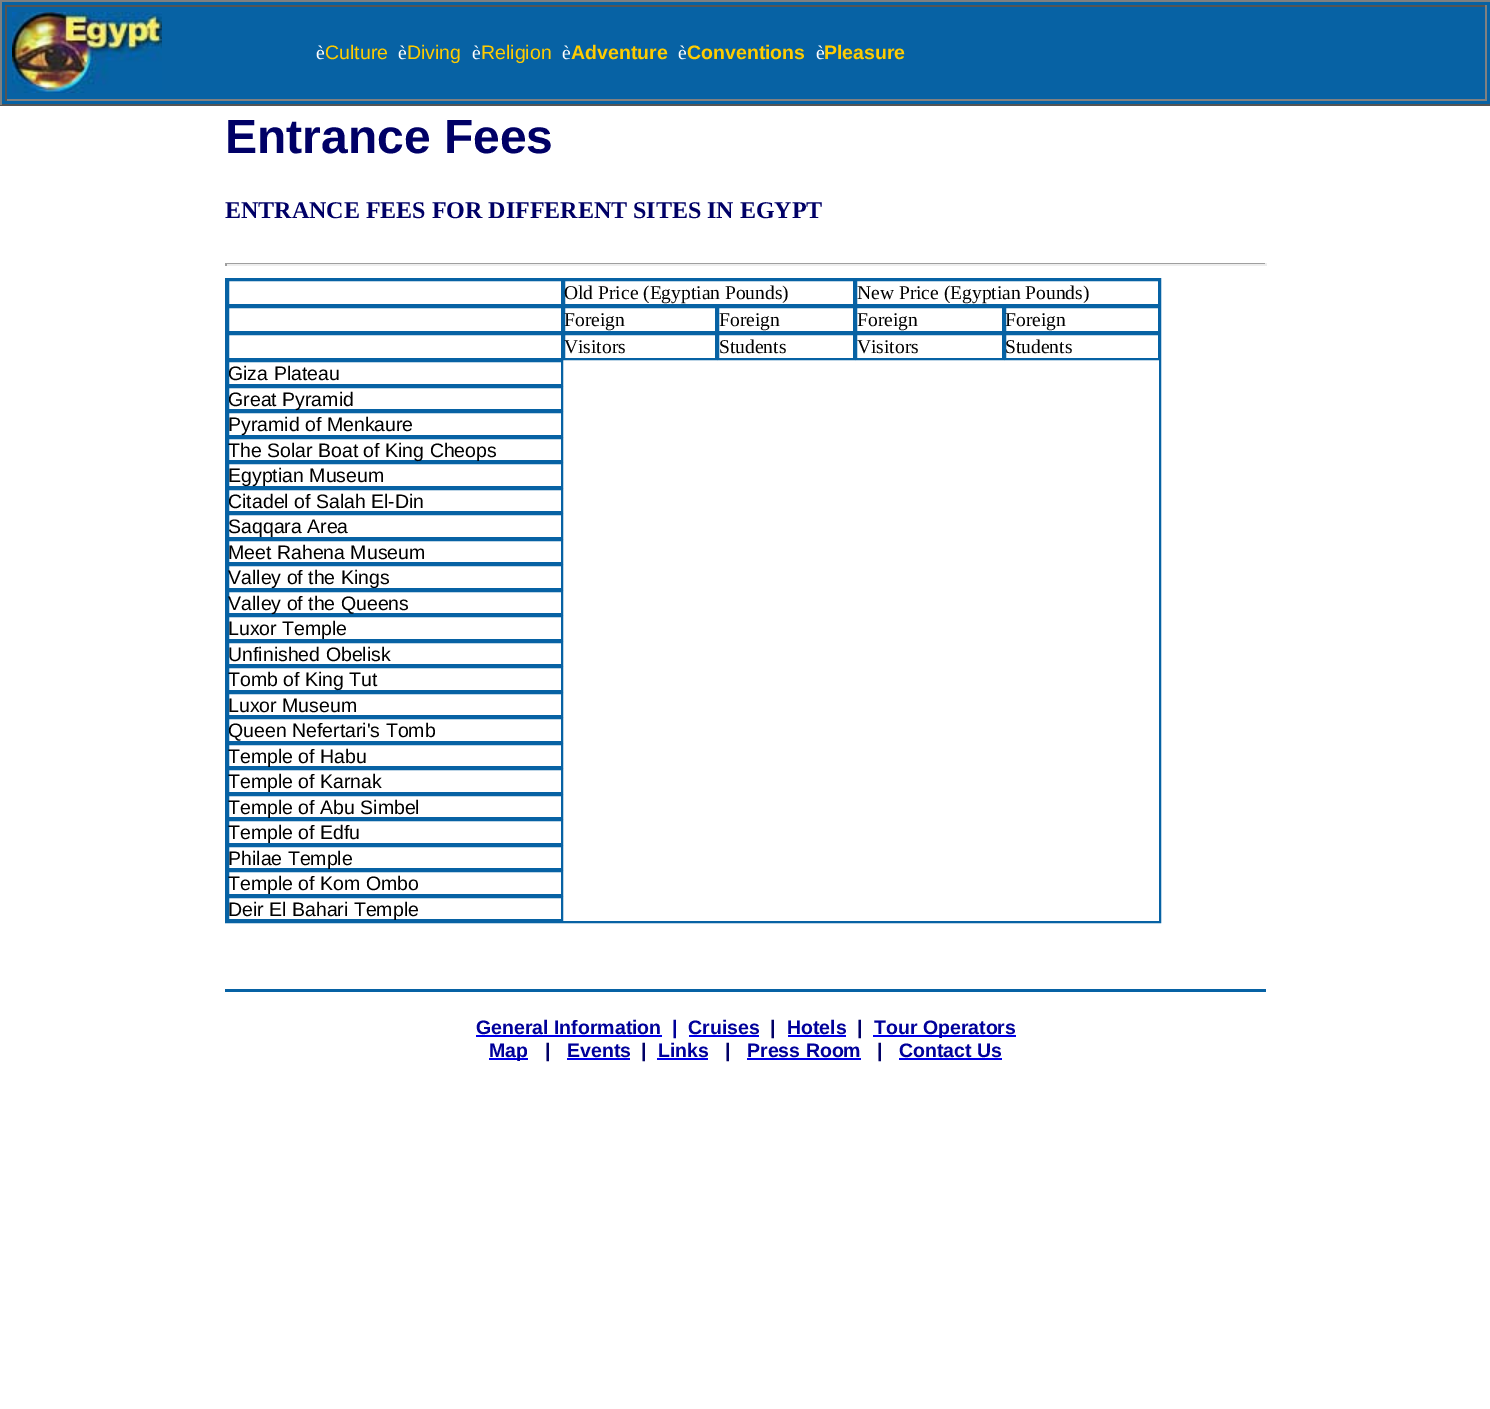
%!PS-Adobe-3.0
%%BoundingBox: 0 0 1490 1409
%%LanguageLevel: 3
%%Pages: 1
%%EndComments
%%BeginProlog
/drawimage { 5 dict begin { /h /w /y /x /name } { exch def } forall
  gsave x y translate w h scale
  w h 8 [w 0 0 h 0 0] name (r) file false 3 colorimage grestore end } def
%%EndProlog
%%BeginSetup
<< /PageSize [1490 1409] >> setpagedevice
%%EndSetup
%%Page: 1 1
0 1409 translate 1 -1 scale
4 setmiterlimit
1 setgray
0 0 1490 1409 rectfill
0.027 0.384 0.643 setrgbcolor
2 2 1488 102 rectfill
0.502 setgray
0 0 1490 2 rectfill
0.333 setgray
0 104 1490 2 rectfill
0.502 setgray
0 0 2 105 rectfill
0.333 setgray
5 5 1482 2 rectfill
0.502 setgray
1485 5 2 96 rectfill
5 99 1482 2 rectfill
0.333 setgray
5 5 2 96 rectfill
(images/1.raw) 12 12 150 81 drawimage
0.624 setgray
225 263 1041 1 rectfill
0.933 setgray
1265 263 2 3 rectfill
225 264 1041 2 rectfill
0.624 setgray
225 263 2 3 rectfill
0.027 0.384 0.643 setrgbcolor
2 setlinewidth
226 279 934 643 rectstroke
228 280 334 25 rectstroke
564 280 290 25 rectstroke
856 280 303 25 rectstroke
228 307 334 25 rectstroke
564 307 152 25 rectstroke
718 307 136 25 rectstroke
856 307 147 25 rectstroke
1005 307 154 25 rectstroke
228 334 334 25 rectstroke
564 334 152 25 rectstroke
718 334 136 25 rectstroke
856 334 147 25 rectstroke
1005 334 154 25 rectstroke
228 361 334 24 rectstroke
228 387 334 23 rectstroke
228 412 334 24 rectstroke
228 438 334 23 rectstroke
228 463 334 24 rectstroke
228 489 334 23 rectstroke
228 514 334 24 rectstroke
228 540 334 23 rectstroke
228 565 334 24 rectstroke
228 591 334 23 rectstroke
228 616 334 24 rectstroke
228 642 334 23 rectstroke
228 667 334 24 rectstroke
228 693 334 23 rectstroke
228 718 334 24 rectstroke
228 744 334 23 rectstroke
228 769 334 24 rectstroke
228 795 334 23 rectstroke
228 820 334 24 rectstroke
228 846 334 23 rectstroke
228 871 334 24 rectstroke
228 897 334 23 rectstroke
225 989 1041 3 rectfill
0 0 0.933 setrgbcolor
476 1035 186 2 rectfill
689 1035 70 2 rectfill
788 1035 58 2 rectfill
873 1035 143 2 rectfill
489 1058 39 2 rectfill
567 1058 63 2 rectfill
657 1058 51 2 rectfill
747 1058 114 2 rectfill
899 1058 103 2 rectfill
/LiberationSerif-Regular [19.5 0 0 -19.5 0 0] selectfont
1 setgray
316 59 moveto (è) show
/LiberationSans-Regular [19.5 0 0 -19.5 0 0] selectfont
1 0.8 0 setrgbcolor
325 59 moveto (Culture) show
/LiberationSerif-Regular [19.5 0 0 -19.5 0 0] selectfont
1 setgray
398 59 moveto (è) show
/LiberationSans-Regular [19.5 0 0 -19.5 0 0] selectfont
1 0.8 0 setrgbcolor
407 59 moveto (Diving) show
/LiberationSerif-Regular [19.5 0 0 -19.5 0 0] selectfont
1 setgray
472 59 moveto (è) show
/LiberationSans-Regular [19.5 0 0 -19.5 0 0] selectfont
1 0.8 0 setrgbcolor
481 59 moveto (Religion) show
/LiberationSerif-Regular [19.5 0 0 -19.5 0 0] selectfont
1 setgray
562 59 moveto (è) show
/LiberationSans-Bold [19.5 0 0 -19.5 0 0] selectfont
1 0.8 0 setrgbcolor
571 59 moveto (Adventure) show
/LiberationSerif-Regular [19.5 0 0 -19.5 0 0] selectfont
1 setgray
678 59 moveto (è) show
/LiberationSans-Bold [19.5 0 0 -19.5 0 0] selectfont
1 0.8 0 setrgbcolor
687 59 moveto (Conventions) show
/LiberationSerif-Regular [19.5 0 0 -19.5 0 0] selectfont
1 setgray
816 59 moveto (è) show
/LiberationSans-Bold [19.5 0 0 -19.5 0 0] selectfont
1 0.8 0 setrgbcolor
824 59 moveto (Pleasure) show
/LiberationSans-Bold [48 0 0 -48 0 0] selectfont
0 0 0.4 setrgbcolor
225 153 moveto (Entrance Fees) show
/LiberationSerif-Bold [24 0 0 -24 0 0] selectfont
225 218 moveto (ENTRANCE FEES FOR DIFFERENT SITES IN EGYPT) show
/LiberationSerif-Regular [19.5 0 0 -19.5 0 0] selectfont
0 setgray
564 299 moveto (Old Price \(Egyptian Pounds\)) show
857 299 moveto (New Price \(Egyptian Pounds\)) show
564 326 moveto (Foreign) show
719 326 moveto (Foreign) show
857 326 moveto (Foreign) show
1005 326 moveto (Foreign) show
564 353 moveto (Visitors) show
719 353 moveto (Students) show
857 353 moveto (Visitors) show
1005 353 moveto (Students) show
/LiberationSans-Regular [19.5 0 0 -19.5 0 0] selectfont
228 380 moveto (Giza Plateau) show
228 406 moveto (Great Pyramid) show
228 431 moveto (Pyramid of Menkaure) show
228 457 moveto (The Solar Boat of King Cheops) show
228 482 moveto (Egyptian Museum) show
228 508 moveto (Citadel of Salah El-Din) show
228 533 moveto (Saqqara Area) show
228 559 moveto (Meet Rahena Museum) show
228 584 moveto (Valley of the Kings) show
228 610 moveto (Valley of the Queens) show
228 635 moveto (Luxor Temple) show
228 661 moveto (Unfinished Obelisk) show
228 686 moveto (Tomb of King Tut) show
228 712 moveto (Luxor Museum) show
228 737 moveto (Queen Nefertari's Tomb) show
228 763 moveto (Temple of Habu) show
228 788 moveto (Temple of Karnak) show
228 814 moveto (Temple of Abu Simbel) show
228 839 moveto (Temple of Edfu) show
228 865 moveto (Philae Temple) show
228 890 moveto (Temple of Kom Ombo) show
228 916 moveto (Deir El Bahari Temple) show
/LiberationSans-Bold [19.5 0 0 -19.5 0 0] selectfont
0 0 0.6 setrgbcolor
476 1034 moveto (General Information) show
672 1034 moveto (|) show
688 1034 moveto (Cruises) show
0 0 0.4 setrgbcolor
770 1034 moveto (|) show
0 0 0.6 setrgbcolor
787 1034 moveto (Hotels) show
0 0 0.4 setrgbcolor
857 1034 moveto (|) show
0 0 0.6 setrgbcolor
874 1034 moveto (Tour Operators) show
489 1057 moveto (Map) show
0 0 0.4 setrgbcolor
545 1057 moveto (|) show
0 0 0.6 setrgbcolor
567 1057 moveto (Events) show
0 0 0.4 setrgbcolor
641 1057 moveto (|) show
0 0 0.6 setrgbcolor
658 1057 moveto (Links) show
0 0 0.4 setrgbcolor
725 1057 moveto (|) show
0 0 0.6 setrgbcolor
747 1057 moveto (Press Room) show
0 0 0.4 setrgbcolor
877 1057 moveto (|) show
0 0 0.6 setrgbcolor
899 1057 moveto (Contact Us) show
showpage
%%EOF
